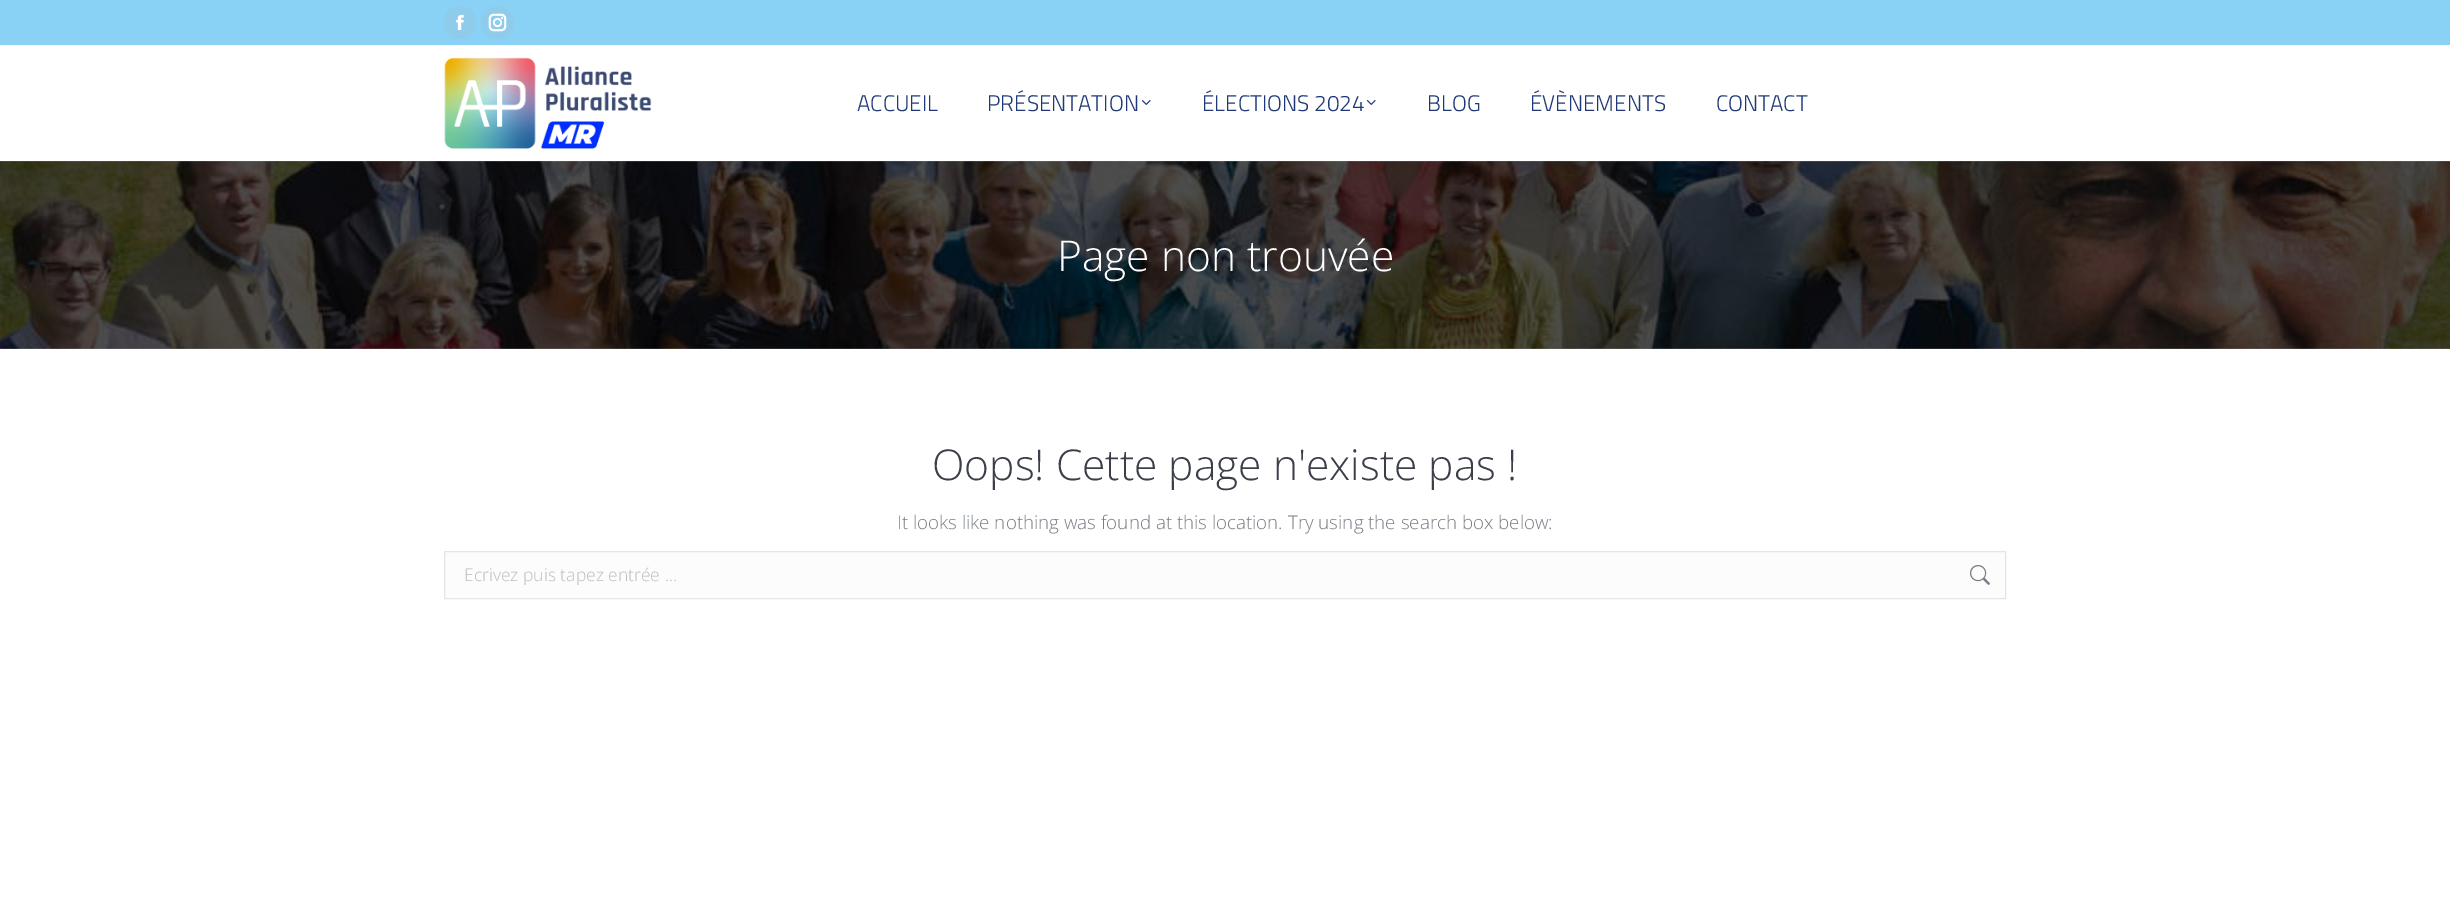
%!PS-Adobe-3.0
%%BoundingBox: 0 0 2450 908
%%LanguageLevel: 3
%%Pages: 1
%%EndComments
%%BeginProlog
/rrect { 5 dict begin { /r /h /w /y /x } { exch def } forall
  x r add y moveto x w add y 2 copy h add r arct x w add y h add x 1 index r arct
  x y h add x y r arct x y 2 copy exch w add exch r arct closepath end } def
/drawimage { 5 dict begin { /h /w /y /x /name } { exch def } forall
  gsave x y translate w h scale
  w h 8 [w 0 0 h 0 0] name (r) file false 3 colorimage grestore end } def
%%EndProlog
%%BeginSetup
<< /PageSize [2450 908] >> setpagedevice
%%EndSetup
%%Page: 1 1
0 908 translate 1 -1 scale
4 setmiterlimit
1 setgray
0 0 2450 908 rectfill
0.537 0.824 0.965 setrgbcolor
0 0 2450 45 rectfill
0.561 0.8 0.922 setrgbcolor
444 6 32 33 16 rrect fill
(images/1.raw) 456 15 8 15 drawimage
newpath 497.5 22.5 16.5 0 360 arc closepath fill
(images/2.raw) 488 13 19 19 drawimage
(images/3.raw) 444 57 208 92 drawimage
(images/4.raw) 1141 100 10 5 drawimage
(images/4.raw) 1366 100 10 5 drawimage
(images/5.raw) 0 161 2450 188 drawimage
0.988 setgray
newpath 444.5 551.5 moveto 2005.5 551.5 lineto 2005.5 598.5 lineto 444.5 598.5 lineto closepath gsave fill grestore
0.894 0.898 0.906 setrgbcolor
stroke
(images/6.raw) 1970 565 20 20 drawimage
/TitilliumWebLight-Light [22.5 0 0 -22.5 0 0] selectfont
0.122 0.224 0.463 setrgbcolor
857 111 moveto (ACCUEIL) show
987 111 moveto (PRÉSENTATION) show
1202 111 moveto (ÉLECTIONS 2024) show
1427 111 moveto (BLOG) show
1530 111 moveto (ÉVÈNEMENTS) show
1716 111 moveto (CONTACT) show
/OpenSans-Light [42.5 0 0 -42.5 0 0] selectfont
1 setgray
1057 271 moveto (Page non trouvée) show
0.231 0.247 0.29 setrgbcolor
932 480 moveto (Oops! Cette page n'existe pas !) show
/OpenSans-Light [18.75 0 0 -18.75 0 0] selectfont
0.471 0.49 0.522 setrgbcolor
897 529 moveto (It looks like nothing was found at this location. Try using the search box below:) show
/OpenSans-Light [17.5 0 0 -17.5 0 0] selectfont
0.729 0.741 0.757 setrgbcolor
464 581 moveto (Ecrivez puis tapez entrée ...) show
showpage
%%EOF
